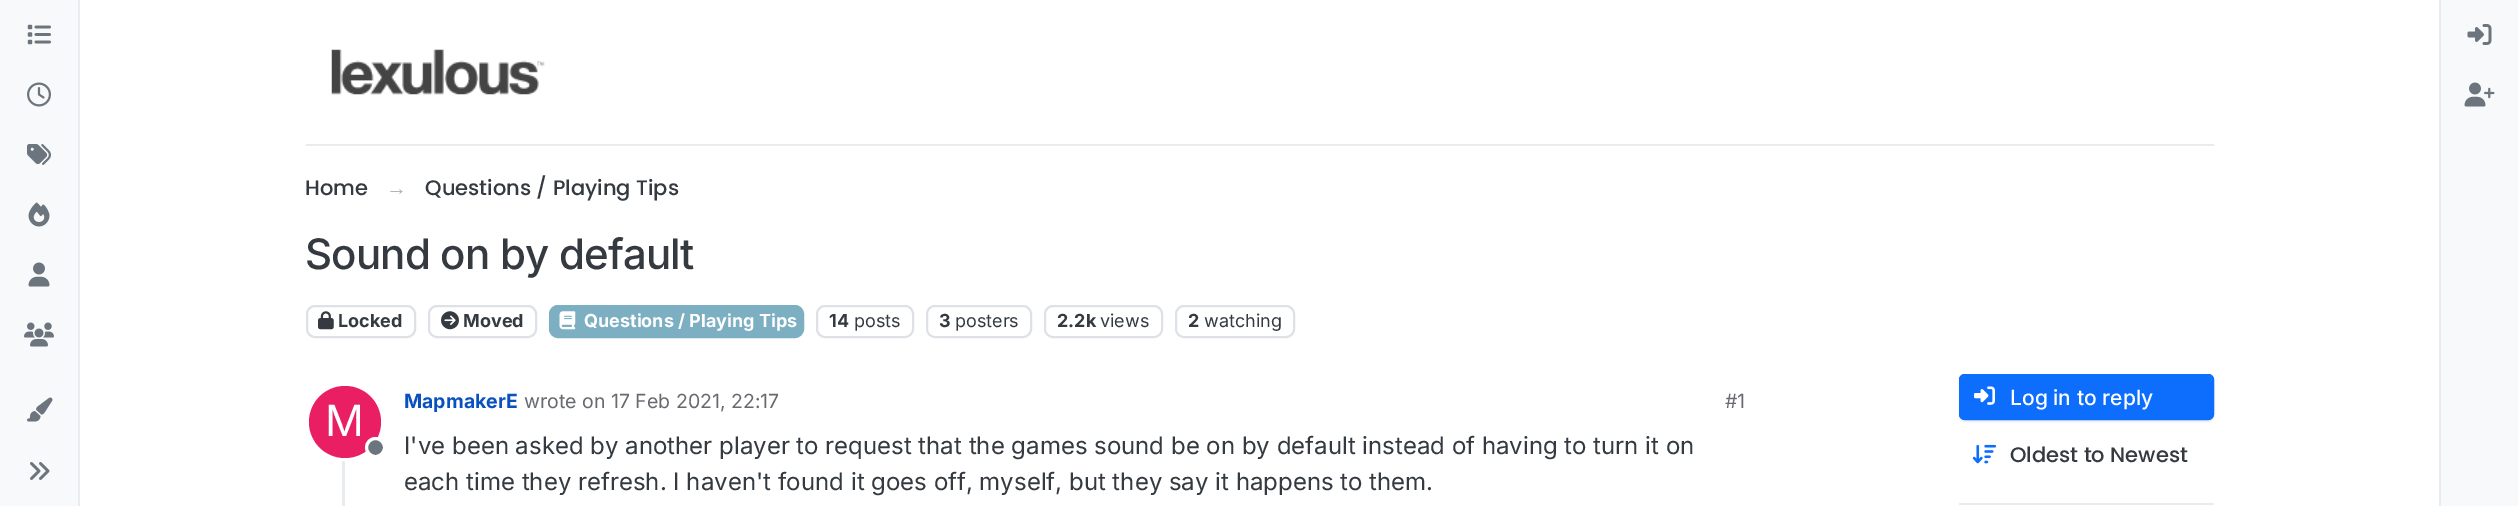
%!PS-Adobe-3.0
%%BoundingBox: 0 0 2518 506
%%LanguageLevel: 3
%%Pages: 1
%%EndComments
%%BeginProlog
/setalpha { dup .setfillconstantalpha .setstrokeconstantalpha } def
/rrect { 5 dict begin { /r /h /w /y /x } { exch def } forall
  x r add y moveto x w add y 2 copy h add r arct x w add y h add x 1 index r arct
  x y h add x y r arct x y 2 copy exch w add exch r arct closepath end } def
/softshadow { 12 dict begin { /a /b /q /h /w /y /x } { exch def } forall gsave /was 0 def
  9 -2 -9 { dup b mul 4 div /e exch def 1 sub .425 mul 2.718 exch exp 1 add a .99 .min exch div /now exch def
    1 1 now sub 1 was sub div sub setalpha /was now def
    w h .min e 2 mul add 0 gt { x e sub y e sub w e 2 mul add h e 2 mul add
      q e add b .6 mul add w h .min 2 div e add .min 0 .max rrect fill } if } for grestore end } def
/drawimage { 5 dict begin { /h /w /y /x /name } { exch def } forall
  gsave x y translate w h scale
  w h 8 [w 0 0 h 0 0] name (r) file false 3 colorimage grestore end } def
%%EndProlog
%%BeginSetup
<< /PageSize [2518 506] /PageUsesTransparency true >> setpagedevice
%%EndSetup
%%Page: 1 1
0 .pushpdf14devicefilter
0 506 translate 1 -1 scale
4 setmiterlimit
1 setgray
0 0 2518 506 rectfill
0.973 0.976 0.98 setrgbcolor
0 0 78 506 rectfill
0.914 0.925 0.937 setrgbcolor
78 0 2 506 rectfill
(images/1.raw) 27 24 24 21 drawimage
(images/2.raw) 27 82 24 25 drawimage
(images/3.raw) 27 144 24 21 drawimage
(images/4.raw) 28 202 22 25 drawimage
(images/5.raw) 28 262 22 25 drawimage
(images/6.raw) 24 322 30 25 drawimage
(images/7.raw) 27 397 26 25 drawimage
(images/8.raw) 30 462 20 18 drawimage
306 144 1908 2 rectfill
(images/9.raw) 331 49 214 46 drawimage
0.871 0.886 0.902 setrgbcolor
2 setlinewidth
307 306 108 31 8 rrect stroke
(images/10.raw) 318 311 16 19 drawimage
429 306 107 31 8 rrect stroke
(images/11.raw) 441 311 18 19 drawimage
0.486 0.686 0.761 setrgbcolor
550 306 253 31 8 rrect gsave fill grestore
stroke
(images/12.raw) 559 311 17 19 drawimage
0.871 0.886 0.902 setrgbcolor
817 306 96 31 8 rrect stroke
927 306 104 31 8 rrect stroke
1045 306 117 31 8 rrect stroke
1176 306 118 31 8 rrect stroke
0.914 0.925 0.937 setrgbcolor
342 386 3 120 rectfill
1 setgray
3 setlinewidth
newpath 345 422 37.5 0 360 arc closepath stroke
0.914 0.118 0.388 setrgbcolor
newpath 345 422 36 0 360 arc closepath fill
0.424 0.459 0.49 setrgbcolor
newpath 375.5 447.5 9 0 360 arc closepath gsave fill grestore
1 setgray
stroke
0 setgray
1959 375 255 47 6 1 0.07 softshadow
0.051 0.431 0.992 setrgbcolor
1959 374 255 46 6 rrect fill
0.192 0.518 0.992 setrgbcolor
newpath 1965 376 moveto 2208 376 lineto 2214 376 2212 391 2212 393 curveto 2212 417 lineto 2213 416 2213 415 2213 414 curveto 2213 380 lineto 2213 377 2211 375 2208 375 curveto 1966 375 lineto 1964 375 1962 376 1961 378 curveto 1962 377 1964 376 1965 376 curveto closepath fill
0.051 0.431 0.992 setrgbcolor
2 setlinewidth
1960 375 253 44 5 rrect stroke
(images/13.raw) 1974 386 21 19 drawimage
(images/14.raw) 1972 444 25 20 drawimage
0.914 0.925 0.937 setrgbcolor
1959 503 255 2 rectfill
0.973 0.976 0.98 setrgbcolor
2441 0 77 506 rectfill
0.914 0.925 0.937 setrgbcolor
2439 0 2 506 rectfill
(images/15.raw) 2467 24 25 21 drawimage
(images/16.raw) 2464 82 31 25 drawimage
/Poppins-Medium [21 0 0 -21 0 0] selectfont
0.204 0.227 0.251 setrgbcolor
305 195 moveto (Home) show
/LiberationSans-Regular [21 0 0 -21 0 0] selectfont
0.678 0.71 0.741 setrgbcolor
386 195 moveto (→) show
/Poppins-Medium [21 0 0 -21 0 0] selectfont
0.204 0.227 0.251 setrgbcolor
425 195 moveto (Questions / Playing Tips) show
/Inter-Medium [42 0 0 -42 0 0] selectfont
305 269 moveto -0.8 0 (Sound on by default) ashow
/Inter-Bold [18 0 0 -18 0 0] selectfont
338 327 moveto (Locked) show
463 327 moveto (Moved) show
1 setgray
584 327 moveto (Questions / Playing Tips) show
0.204 0.227 0.251 setrgbcolor
829 327 moveto (14) show
/Inter-Regular [18 0 0 -18 0 0] selectfont
854 327 moveto (posts) show
/Inter-Bold [18 0 0 -18 0 0] selectfont
939 327 moveto (3) show
/Inter-Regular [18 0 0 -18 0 0] selectfont
955 327 moveto (posters) show
/Inter-Bold [18 0 0 -18 0 0] selectfont
1057 327 moveto (2.2k) show
/Inter-Regular [18 0 0 -18 0 0] selectfont
1100 327 moveto (views) show
/Inter-Bold [18 0 0 -18 0 0] selectfont
1188 327 moveto (2) show
/Inter-Regular [18 0 0 -18 0 0] selectfont
1204 327 moveto (watching) show
/Inter-Regular [43 0 0 -43 0 0] selectfont
1 setgray
325 436 moveto (M) show
/Inter-Bold [19.5 0 0 -19.5 0 0] selectfont
0.035 0.318 0.745 setrgbcolor
404 408 moveto (MapmakerE) show
/Inter-Regular [19.5 0 0 -19.5 0 0] selectfont
0.404 0.42 0.439 setrgbcolor
524 408 moveto (wrote on 17 Feb 2021, 22:17) show
1725 408 moveto (#1) show
/Inter-Regular [24 0 0 -24 0 0] selectfont
0.204 0.227 0.251 setrgbcolor
404 454 moveto (I've been asked by another player to request that the games sound be on by default instead of having to turn it on) show
404 490 moveto (each time they refresh. I haven't found it goes off, myself, but they say it happens to them.) show
/Inter-Medium [21 0 0 -21 0 0] selectfont
1 setgray
2010 405 moveto (Log in to reply) show
/Poppins-Medium [21 0 0 -21 0 0] selectfont
0.204 0.227 0.251 setrgbcolor
2010 462 moveto (Oldest to Newest) show
.poppdf14devicefilter showpage
%%EOF
